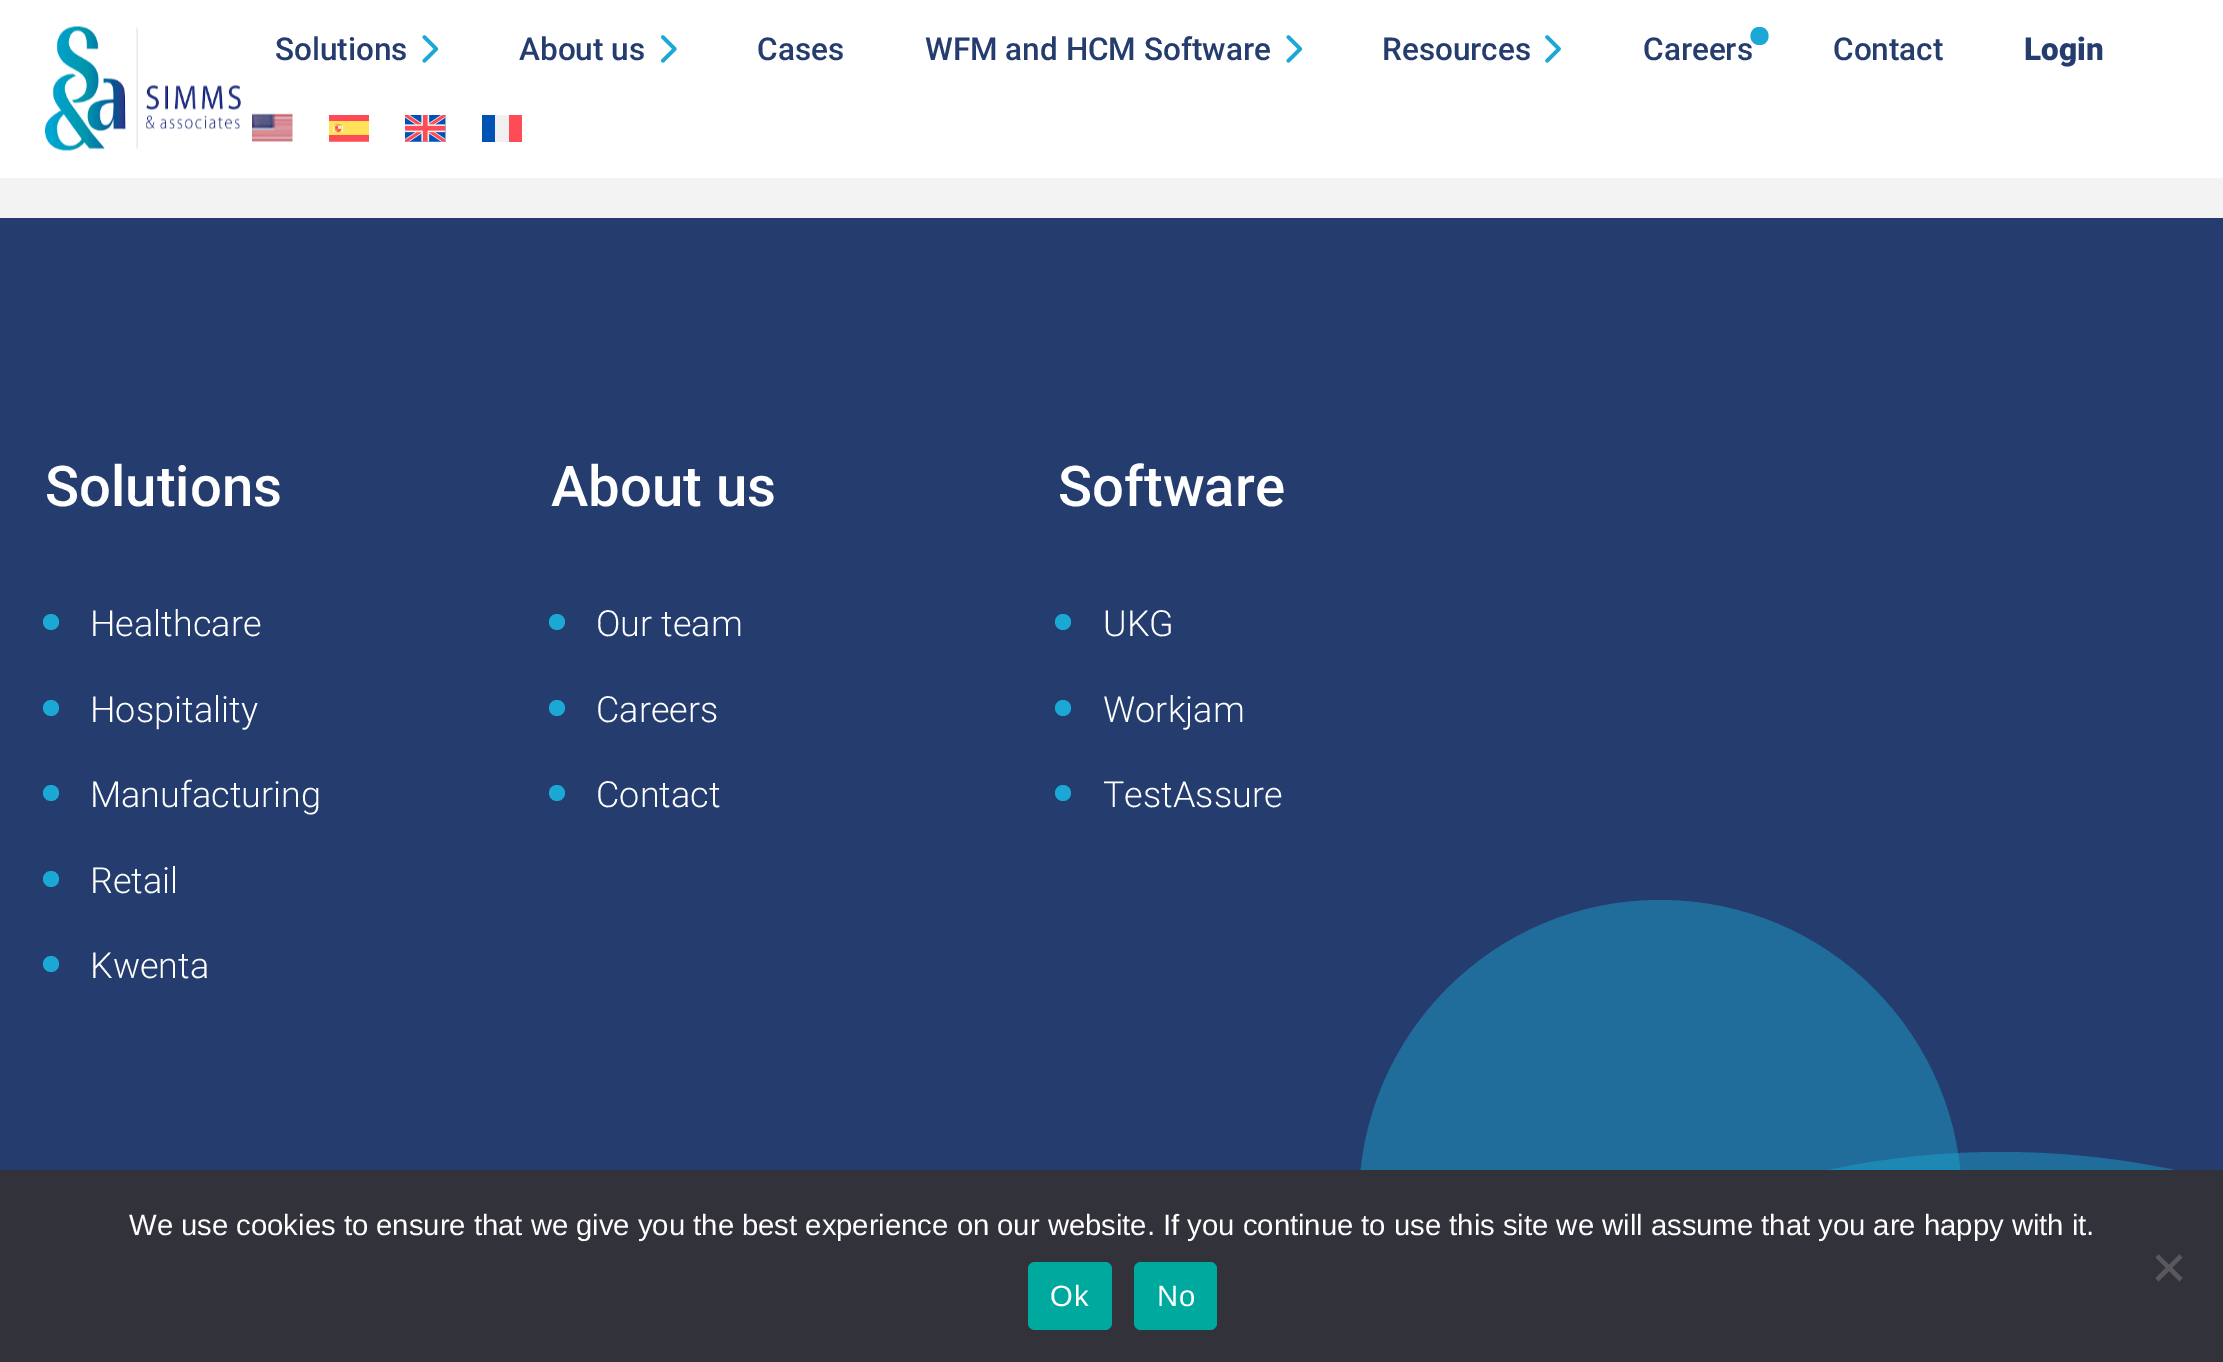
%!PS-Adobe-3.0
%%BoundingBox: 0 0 2223 1362
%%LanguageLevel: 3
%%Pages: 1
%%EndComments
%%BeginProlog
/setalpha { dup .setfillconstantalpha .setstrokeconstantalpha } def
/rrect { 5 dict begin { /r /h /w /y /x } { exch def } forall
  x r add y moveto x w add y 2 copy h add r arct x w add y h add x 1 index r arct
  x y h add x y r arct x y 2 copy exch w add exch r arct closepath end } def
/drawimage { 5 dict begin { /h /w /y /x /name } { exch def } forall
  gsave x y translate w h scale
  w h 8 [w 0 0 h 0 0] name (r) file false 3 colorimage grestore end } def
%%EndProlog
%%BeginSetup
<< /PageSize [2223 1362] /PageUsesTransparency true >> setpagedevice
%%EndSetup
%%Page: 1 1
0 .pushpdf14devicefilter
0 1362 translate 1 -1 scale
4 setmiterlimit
0.953 setgray
0 0 2223 1362 rectfill
1 setgray
0 0 2223 178 rectfill
(images/1.raw) 45 26 196 125 drawimage
(images/2.raw) 422 35 17 28 drawimage
(images/3.raw) 661 35 16 28 drawimage
(images/2.raw) 1286 35 17 28 drawimage
(images/4.raw) 1545 35 16 28 drawimage
(images/5.raw) 252 113 41 29 drawimage
(images/6.raw) 329 115 40 27 drawimage
(images/7.raw) 405 115 41 27 drawimage
0 0.322 0.706 setrgbcolor
482 115 13 27 rectfill
0.941 setgray
495 115 14 27 rectfill
1 0.294 0.333 setrgbcolor
509 115 13 27 rectfill
0.141 0.239 0.431 setrgbcolor
0 218 2223 952 rectfill
0.106 0.659 0.831 setrgbcolor
newpath 51 622 8 0 360 arc closepath fill
newpath 51 708 8 0 360 arc closepath fill
newpath 51 793 8 0 360 arc closepath fill
newpath 51 879 8 0 360 arc closepath fill
newpath 51 964 8 0 360 arc closepath fill
newpath 557 622 8 0 360 arc closepath fill
newpath 557 708 8 0 360 arc closepath fill
newpath 557 793 8 0 360 arc closepath fill
newpath 1063 622 8 0 360 arc closepath fill
newpath 1063 708 8 0 360 arc closepath fill
newpath 1063 793 8 0 360 arc closepath fill
0.125 0.427 0.612 setrgbcolor
newpath 2001 1152 moveto 1541 1152 1168 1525 1168 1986 curveto 1168 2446 1541 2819 2001 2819 curveto 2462 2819 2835 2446 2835 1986 curveto 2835 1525 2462 1152 2001 1152 curveto closepath fill
0.45 setalpha
0.106 0.659 0.831 setrgbcolor
newpath 1660 900 moveto 1494 900 1359 1035 1359 1202 curveto 1359 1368 1494 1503 1660 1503 curveto 1827 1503 1962 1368 1962 1202 curveto 1962 1035 1827 900 1660 900 curveto closepath fill
1 setalpha
0.196 0.196 0.227 setrgbcolor
0 1170 2223 192 rectfill
0.349 0.349 0.365 setrgbcolor
newpath 2179.5 1254.5 moveto 2182.5 1257.5 lineto 2158.5 1281.5 lineto 2155.5 1278 lineto closepath fill
newpath 2155.5 1257.5 moveto 2158.5 1254.5 lineto 2182.5 1278 lineto 2179.5 1281.5 lineto closepath fill
0 0.663 0.616 setrgbcolor
1028 1262 84 68 7 rrect fill
1134 1262 83 68 7 rrect fill
/Roboto-Medium [31.5 0 0 -31.5 0 0] selectfont
0.141 0.239 0.431 setrgbcolor
275 60 moveto (Solutions) show
519 60 moveto (About us) show
757 60 moveto (Cases) show
925 60 moveto (WFM and HCM Software) show
1382 60 moveto (Resources) show
1643 60 moveto (Careers) show
0.106 0.659 0.831 setrgbcolor
newpath 1759.5 45 moveto 1771.5 45 1771.5 27 1759.5 27 curveto 1747.5 27 1747.5 45 1759.5 45 curveto closepath fill
0.141 0.239 0.431 setrgbcolor
1833 60 moveto (Contact) show
/Roboto-Black [31.5 0 0 -31.5 0 0] selectfont
2024 60 moveto (Login) show
/Roboto-Medium [56.25 0 0 -56.25 0 0] selectfont
1 setgray
45 506 moveto (Solutions) show
/Roboto-Light [36 0 0 -36 0 0] selectfont
90 636 moveto (Healthcare) show
90 722 moveto (Hospitality) show
90 807 moveto (Manufacturing) show
90 893 moveto (Retail) show
90 978 moveto (Kwenta) show
/Roboto-Medium [56.25 0 0 -56.25 0 0] selectfont
551 506 moveto (About us) show
/Roboto-Light [36 0 0 -36 0 0] selectfont
596 636 moveto (Our team) show
596 722 moveto (Careers) show
596 807 moveto (Contact) show
/Roboto-Medium [56.25 0 0 -56.25 0 0] selectfont
1058 506 moveto (Software) show
/Roboto-Light [36 0 0 -36 0 0] selectfont
1103 636 moveto (UKG) show
1103 722 moveto (Workjam) show
1103 807 moveto (TestAssure) show
/LiberationSans-Regular [29.25 0 0 -29.25 0 0] selectfont
129 1235 moveto (We use cookies to ensure that we give you the best experience on our website. If you continue to use this site we will assume that you are happy with it.) show
1050 1306 moveto 1 0 (Ok) ashow
1157 1306 moveto 1 0 (No) ashow
.poppdf14devicefilter showpage
%%EOF
